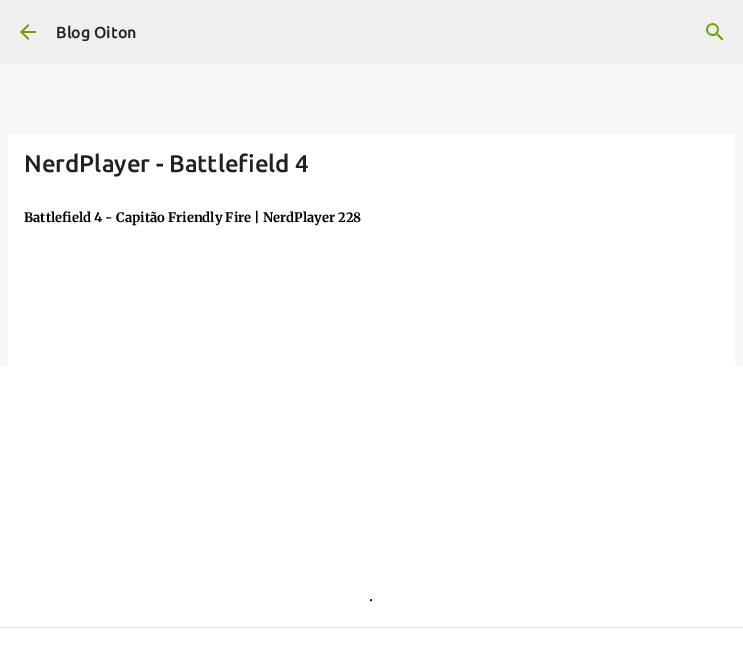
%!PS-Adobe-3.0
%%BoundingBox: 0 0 743 646
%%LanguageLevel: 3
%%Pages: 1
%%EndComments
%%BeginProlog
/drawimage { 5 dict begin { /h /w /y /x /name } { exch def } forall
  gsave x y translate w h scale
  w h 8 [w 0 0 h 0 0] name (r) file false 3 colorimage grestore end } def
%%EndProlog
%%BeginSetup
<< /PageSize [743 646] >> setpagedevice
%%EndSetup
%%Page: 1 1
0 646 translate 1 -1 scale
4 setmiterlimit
0.969 setgray
0 0 743 646 rectfill
0.937 setgray
0 0 743 64 rectfill
(images/1.raw) 20 24 16 16 drawimage
(images/2.raw) 706 23 18 18 drawimage
1 setgray
0 366 743 261 rectfill
8 134 727 232 rectfill
0 628 743 18 rectfill
0.878 setgray
0 627 743 1 rectfill
/Ubuntu-Medium [16 0 0 -16 0 0] selectfont
0.129 setgray
56 38 moveto (Blog Oiton) show
/Ubuntu-Medium [24 0 0 -24 0 0] selectfont
24 172 moveto (NerdPlayer - Battlefield 4) show
/Merriweather-Bold [13 0 0 -13 0 0] selectfont
0 setgray
24 222 moveto (Battlefield 4 - Capitão Friendly Fire | NerdPlayer 228) show
/Merriweather-Regular [16 0 0 -16 0 0] selectfont
369 601 moveto (.) show
showpage
%%EOF
